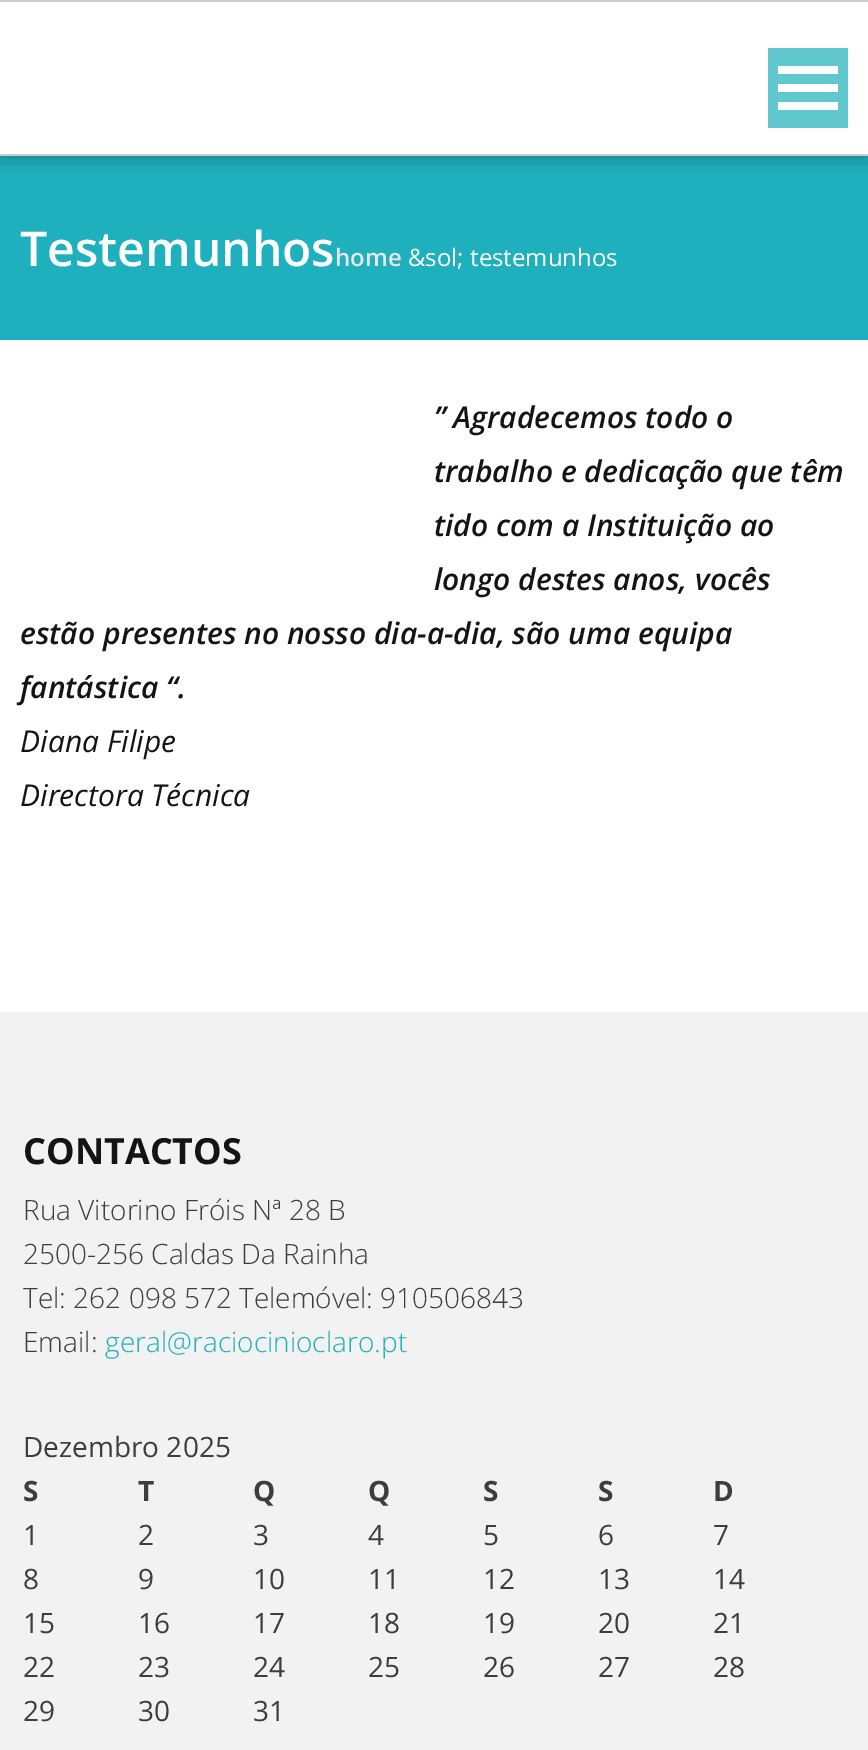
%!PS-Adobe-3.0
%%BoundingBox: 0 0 868 1750
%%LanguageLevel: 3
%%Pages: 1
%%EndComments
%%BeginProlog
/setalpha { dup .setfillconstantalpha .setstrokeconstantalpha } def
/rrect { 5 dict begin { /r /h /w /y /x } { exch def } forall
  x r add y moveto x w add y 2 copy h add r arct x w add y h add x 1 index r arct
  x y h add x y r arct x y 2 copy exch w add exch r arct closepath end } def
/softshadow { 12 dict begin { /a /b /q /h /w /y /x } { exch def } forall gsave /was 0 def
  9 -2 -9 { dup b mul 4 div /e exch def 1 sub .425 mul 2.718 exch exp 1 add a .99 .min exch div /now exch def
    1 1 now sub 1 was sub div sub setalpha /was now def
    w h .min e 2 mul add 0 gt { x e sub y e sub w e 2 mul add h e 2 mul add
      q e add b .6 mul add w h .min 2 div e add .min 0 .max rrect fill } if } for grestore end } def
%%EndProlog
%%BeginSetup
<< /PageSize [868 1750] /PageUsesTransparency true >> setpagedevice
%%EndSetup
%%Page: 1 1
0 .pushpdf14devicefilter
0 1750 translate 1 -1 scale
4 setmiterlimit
1 setgray
0 0 868 1750 rectfill
0.118 0.69 0.737 setrgbcolor
0 156 868 184 rectfill
gsave
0 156 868 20 rectclip
0 setgray
0 0 868 156 0 13 0.3 softshadow
grestore
0.804 setgray
0 0 868 2 rectfill
0 154 868 2 rectfill
0.384 0.784 0.816 setrgbcolor
768 48 80 80 rectfill
1 setgray
778 66 60 8 rectfill
778 84 60 8 rectfill
778 102 60 8 rectfill
0.949 setgray
0 1012 868 738 rectfill
/OpenSans-SemiBold [48 0 0 -48 0 0] selectfont
1 setgray
20 266 moveto (Testemunhos) show
/OpenSans-SemiBold [24 0 0 -24 0 0] selectfont
0.902 setgray
335 266 moveto (home) show
/OpenSans-Regular [24 0 0 -24 0 0] selectfont
1 setgray
408 266 moveto (&sol; testemunhos) show
/OpenSans-SemiBoldItalic [30 0 0 -30 0 0] selectfont
0.078 setgray
434 428 moveto (” Agradecemos todo o) show
434 482 moveto (trabalho e dedicação que têm) show
434 536 moveto (tido com a Instituição ao) show
434 590 moveto (longo destes anos, vocês) show
20 644 moveto (estão presentes no nosso dia-a-dia, são uma equipa) show
20 698 moveto (fantástica “.) show
/OpenSans-Italic [30 0 0 -30 0 0] selectfont
20 752 moveto (Diana Filipe) show
20 806 moveto (Directora Técnica) show
/OpenSans-Bold [36 0 0 -36 0 0] selectfont
23 1164 moveto (CONTACTOS) show
/OpenSans-Light [28 0 0 -28 0 0] selectfont
0.239 setgray
23 1220 moveto (Rua Vitorino Fróis Nª 28 B) show
23 1264 moveto (2500-256 Caldas Da Rainha) show
23 1308 moveto (Tel: 262 098 572 Telemóvel: 910506843) show
23 1352 moveto (Email:) show
0.118 0.69 0.737 setrgbcolor
105 1352 moveto (geral@raciocinioclaro.pt) show
/OpenSans-Regular [28 0 0 -28 0 0] selectfont
0.239 setgray
23 1457 moveto (Dezembro 2025) show
/OpenSans-Bold [28 0 0 -28 0 0] selectfont
23 1501 moveto (S) show
138 1501 moveto (T) show
253 1501 moveto (Q) show
368 1501 moveto (Q) show
483 1501 moveto (S) show
598 1501 moveto (S) show
713 1501 moveto (D) show
/OpenSans-Regular [28 0 0 -28 0 0] selectfont
23 1545 moveto (1) show
138 1545 moveto (2) show
253 1545 moveto (3) show
368 1545 moveto (4) show
483 1545 moveto (5) show
598 1545 moveto (6) show
713 1545 moveto (7) show
23 1589 moveto (8) show
138 1589 moveto (9) show
253 1589 moveto (10) show
368 1589 moveto (11) show
483 1589 moveto (12) show
598 1589 moveto (13) show
713 1589 moveto (14) show
23 1633 moveto (15) show
138 1633 moveto (16) show
253 1633 moveto (17) show
368 1633 moveto (18) show
483 1633 moveto (19) show
598 1633 moveto (20) show
713 1633 moveto (21) show
23 1677 moveto (22) show
138 1677 moveto (23) show
253 1677 moveto (24) show
368 1677 moveto (25) show
483 1677 moveto (26) show
598 1677 moveto (27) show
713 1677 moveto (28) show
23 1721 moveto (29) show
138 1721 moveto (30) show
253 1721 moveto (31) show
.poppdf14devicefilter showpage
%%EOF
